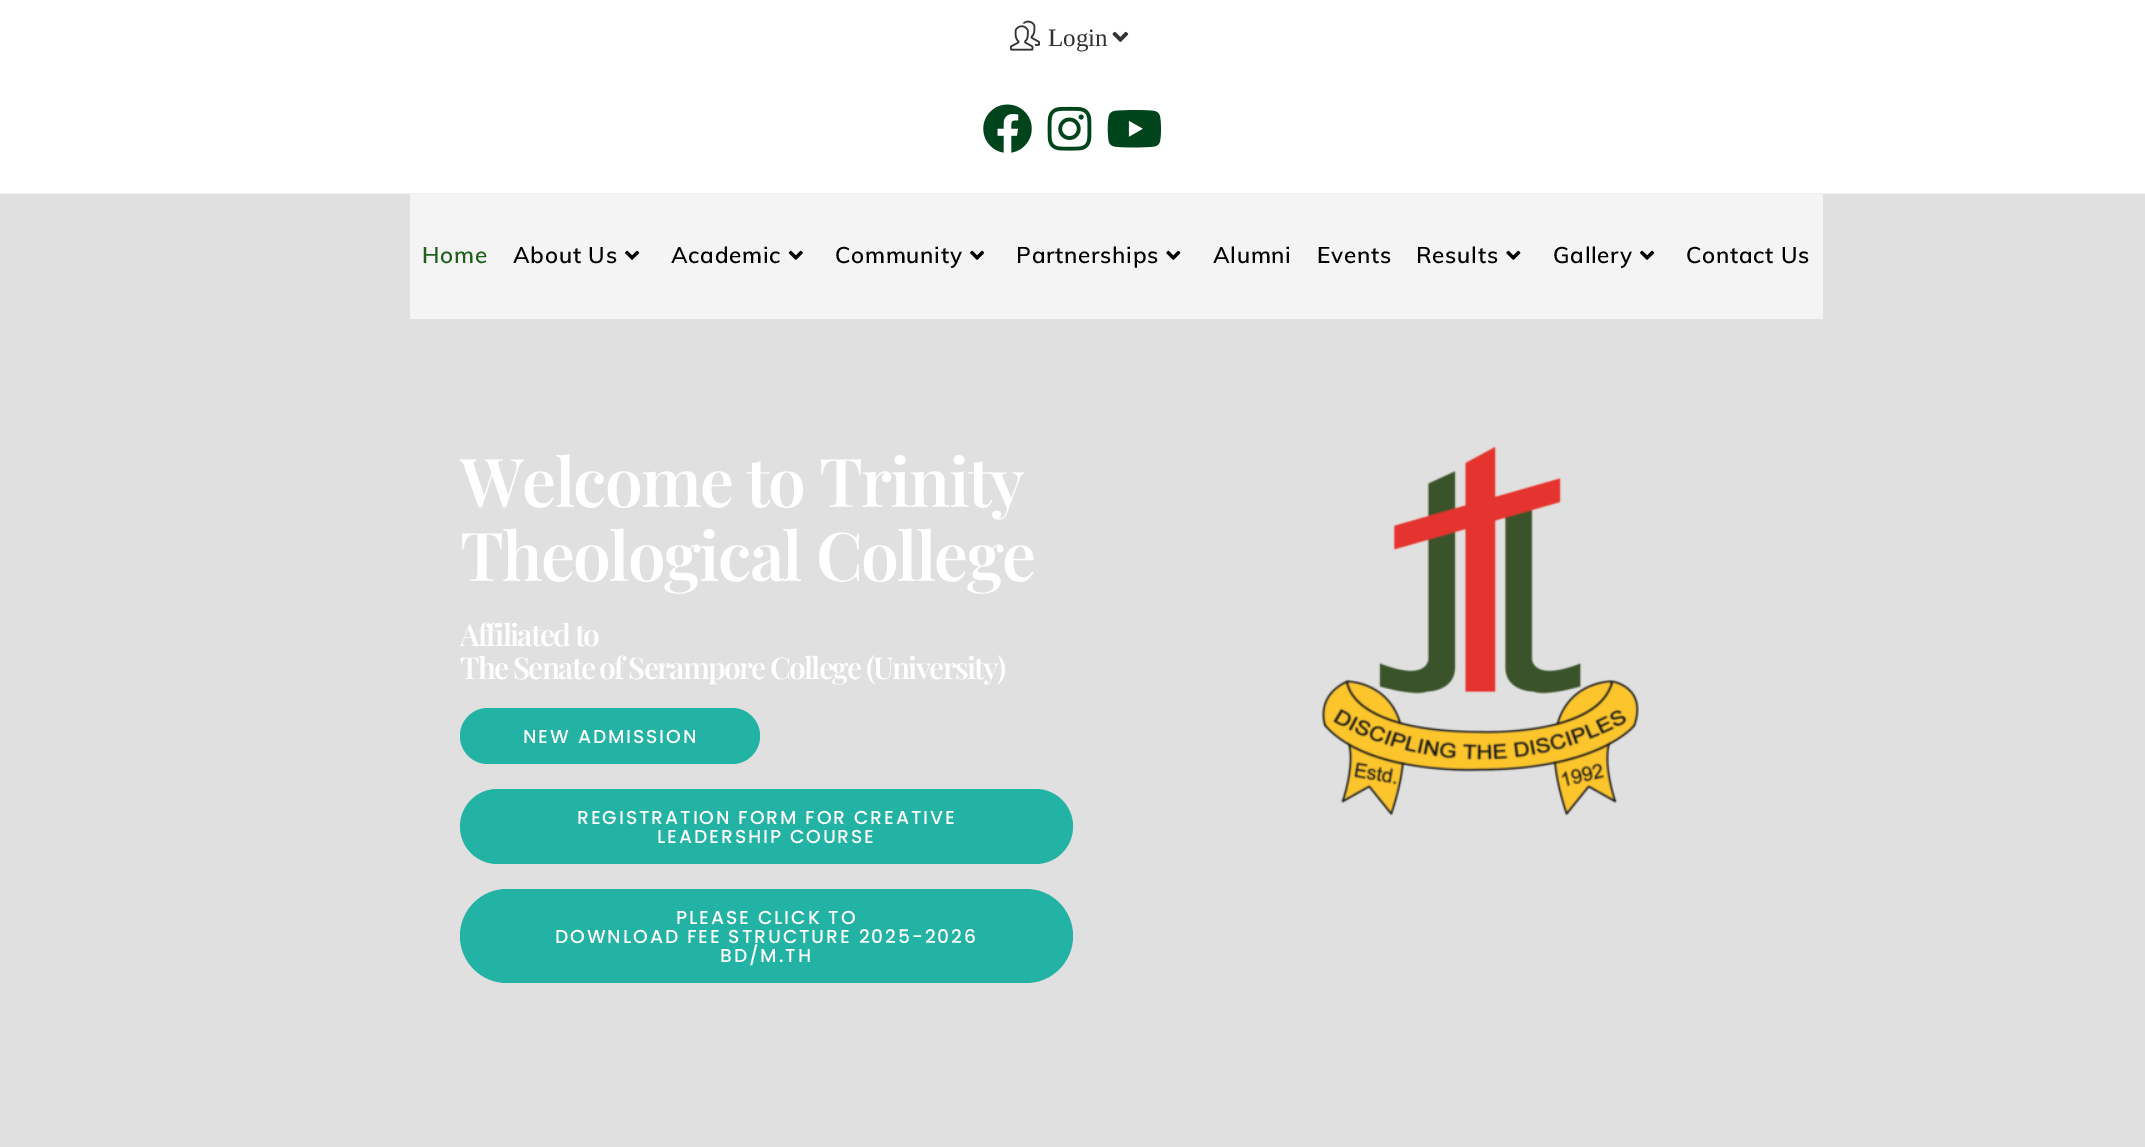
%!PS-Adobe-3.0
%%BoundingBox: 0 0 2145 1147
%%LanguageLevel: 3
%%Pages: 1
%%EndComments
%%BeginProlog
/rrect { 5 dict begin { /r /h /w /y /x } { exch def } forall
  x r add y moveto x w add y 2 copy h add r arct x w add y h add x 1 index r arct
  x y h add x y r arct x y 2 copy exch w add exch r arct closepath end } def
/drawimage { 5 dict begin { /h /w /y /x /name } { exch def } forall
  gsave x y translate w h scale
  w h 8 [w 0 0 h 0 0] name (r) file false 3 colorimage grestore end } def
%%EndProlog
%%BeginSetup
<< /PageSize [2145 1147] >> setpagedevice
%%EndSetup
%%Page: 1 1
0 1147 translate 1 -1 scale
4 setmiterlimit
1 setgray
0 0 2145 1147 rectfill
0.945 setgray
0 193 2145 1 rectfill
(images/1.raw) 1010 20 30 31 drawimage
(images/2.raw) 1112 31 17 11 drawimage
(images/3.raw) 983 104 49 49 drawimage
(images/4.raw) 1047 106 45 45 drawimage
(images/5.raw) 1107 110 55 38 drawimage
0.878 setgray
0 194 2145 953 rectfill
0.957 setgray
410 194 1413 125 rectfill
(images/6.raw) 625 250 15 10 drawimage
(images/7.raw) 788 250 15 10 drawimage
(images/6.raw) 970 250 15 10 drawimage
(images/8.raw) 1166 250 15 10 drawimage
(images/8.raw) 1506 250 15 10 drawimage
(images/6.raw) 1640 250 15 10 drawimage
0.133 0.702 0.643 setrgbcolor
460 708 300 56 28 rrect fill
460 789 613 75 37.5 rrect fill
460 889 613 94 47 rrect fill
(images/9.raw) 1321 446 318 370 drawimage
/LiberationSerif-Regular [25 0 0 -25 0 0] selectfont
0.2 setgray
1048 46 moveto (Login) show
/Muli-SemiBold [22.5 0 0 -22.5 0 0] selectfont
0.125 0.376 0.114 setrgbcolor
422 263 moveto 0.75 0 (Home) ashow
0 setgray
513 263 moveto 0.75 0 (About Us) ashow
671 263 moveto 0.75 0 (Academic) ashow
835 263 moveto 0.75 0 (Community) ashow
1016 263 moveto 0.75 0 (Partnerships) ashow
1213 263 moveto 0.75 0 (Alumni) ashow
1317 263 moveto 0.75 0 (Events) ashow
1416 263 moveto 0.75 0 (Results) ashow
1553 263 moveto 0.75 0 (Gallery) ashow
1686 263 moveto 0.75 0 (Contact Us) ashow
/PlayfairDisplay-SemiBold [67.5 0 0 -67.5 0 0] selectfont
1 setgray
460 507 moveto -1.75 0 (Welcome to Trinity) ashow
460 581 moveto -1.75 0 (Theological College) ashow
/PlayfairDisplay-SemiBold [30 0 0 -30 0 0] selectfont
460 646 moveto -1.75 0 (Affiliated to) ashow
460 679 moveto -1.75 0 (The Senate of Serampore College \(University\)) ashow
/Poppins-Medium [18.75 0 0 -18.75 0 0] selectfont
523 743 moveto 1.9 0 (NEW ADMISSION) ashow
577 824 moveto 1.9 0 (REGISTRATION FORM FOR CREATIVE) ashow
657 843 moveto 1.9 0 (LEADERSHIP COURSE) ashow
676 924 moveto 1.9 0 (PLEASE CLICK TO) ashow
555 943 moveto 1.9 0 (DOWNLOAD FEE STRUCTURE 2025-2026) ashow
720 962 moveto 1.9 0 (BD/M.TH) ashow
showpage
%%EOF
